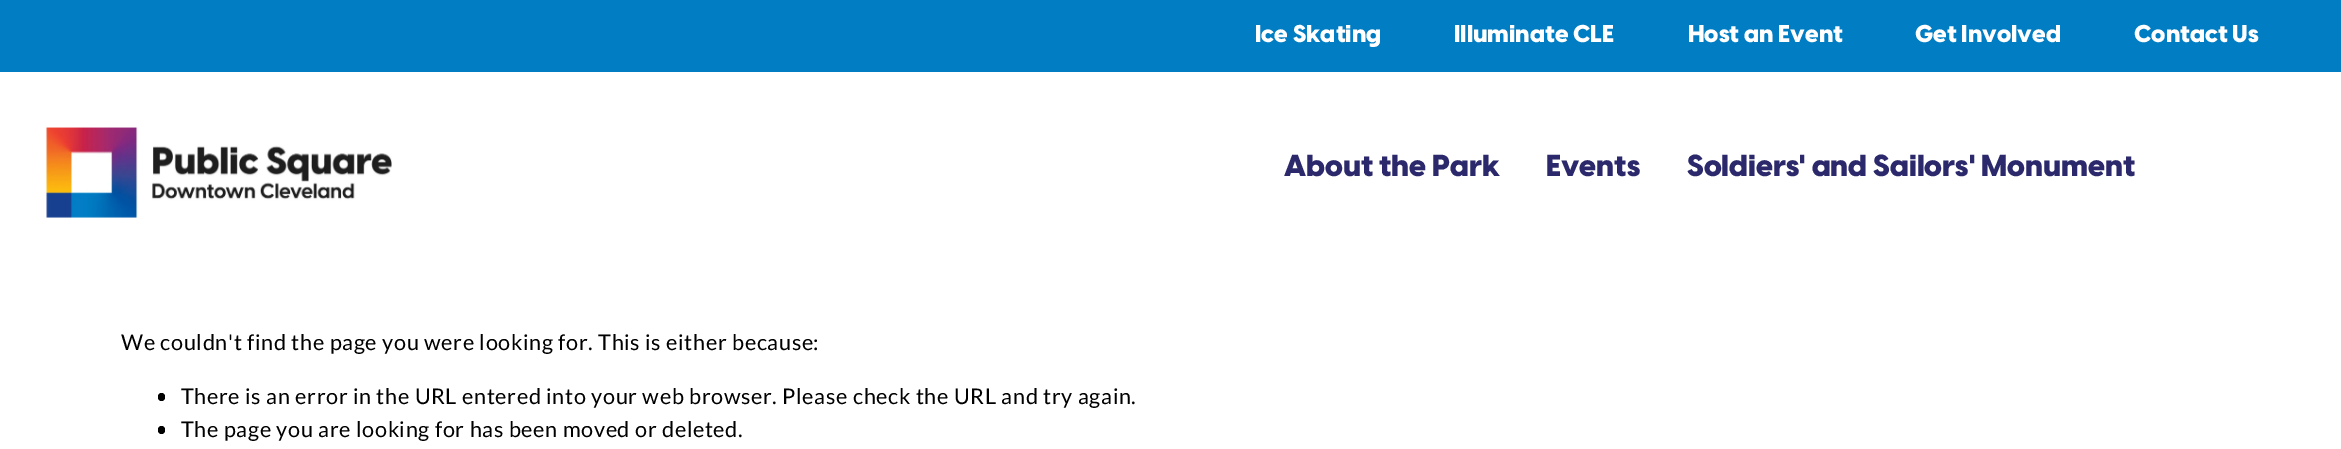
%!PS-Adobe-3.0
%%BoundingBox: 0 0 2341 449
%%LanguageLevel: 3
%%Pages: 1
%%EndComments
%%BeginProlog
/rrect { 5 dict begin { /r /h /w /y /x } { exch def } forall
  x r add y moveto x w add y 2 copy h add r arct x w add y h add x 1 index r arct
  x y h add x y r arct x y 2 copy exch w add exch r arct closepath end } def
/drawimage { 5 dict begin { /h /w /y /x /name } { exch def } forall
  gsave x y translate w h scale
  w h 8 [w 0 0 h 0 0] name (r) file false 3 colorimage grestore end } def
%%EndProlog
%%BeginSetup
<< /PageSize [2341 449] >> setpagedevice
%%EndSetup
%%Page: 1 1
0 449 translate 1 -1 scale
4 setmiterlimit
1 setgray
0 0 2341 449 rectfill
0 0.49 0.765 setrgbcolor
0 0 2341 72 rectfill
(images/1.raw) 46 127 346 91 drawimage
0 setgray
158 393 7 8 3.5 rrect fill
158 426 7 8 3.5 rrect fill
/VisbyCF-Black [24 0 0 -24 0 0] selectfont
1 setgray
1255 42 moveto (Ice Skating) show
1454 42 moveto (Illuminate CLE) show
1688 42 moveto (Host an Event) show
1915 42 moveto (Get Involved) show
2134 42 moveto (Contact Us) show
/VisbyCF-Black [30 0 0 -30 0 0] selectfont
0.169 0.161 0.42 setrgbcolor
1284 176 moveto (About the Park) show
1546 176 moveto (Events) show
1687 176 moveto (Soldiers' and Sailors' Monument) show
/Lato-Regular [21.6 0 0 -21.6 0 0] selectfont
0 setgray
121 350 moveto 0.65 0 (We couldn't find the page you were looking for. This is either because:) ashow
181 404 moveto 0.65 0 (There is an error in the URL entered into your web browser. Please check the URL and try again.) ashow
181 437 moveto 0.65 0 (The page you are looking for has been moved or deleted.) ashow
showpage
%%EOF
